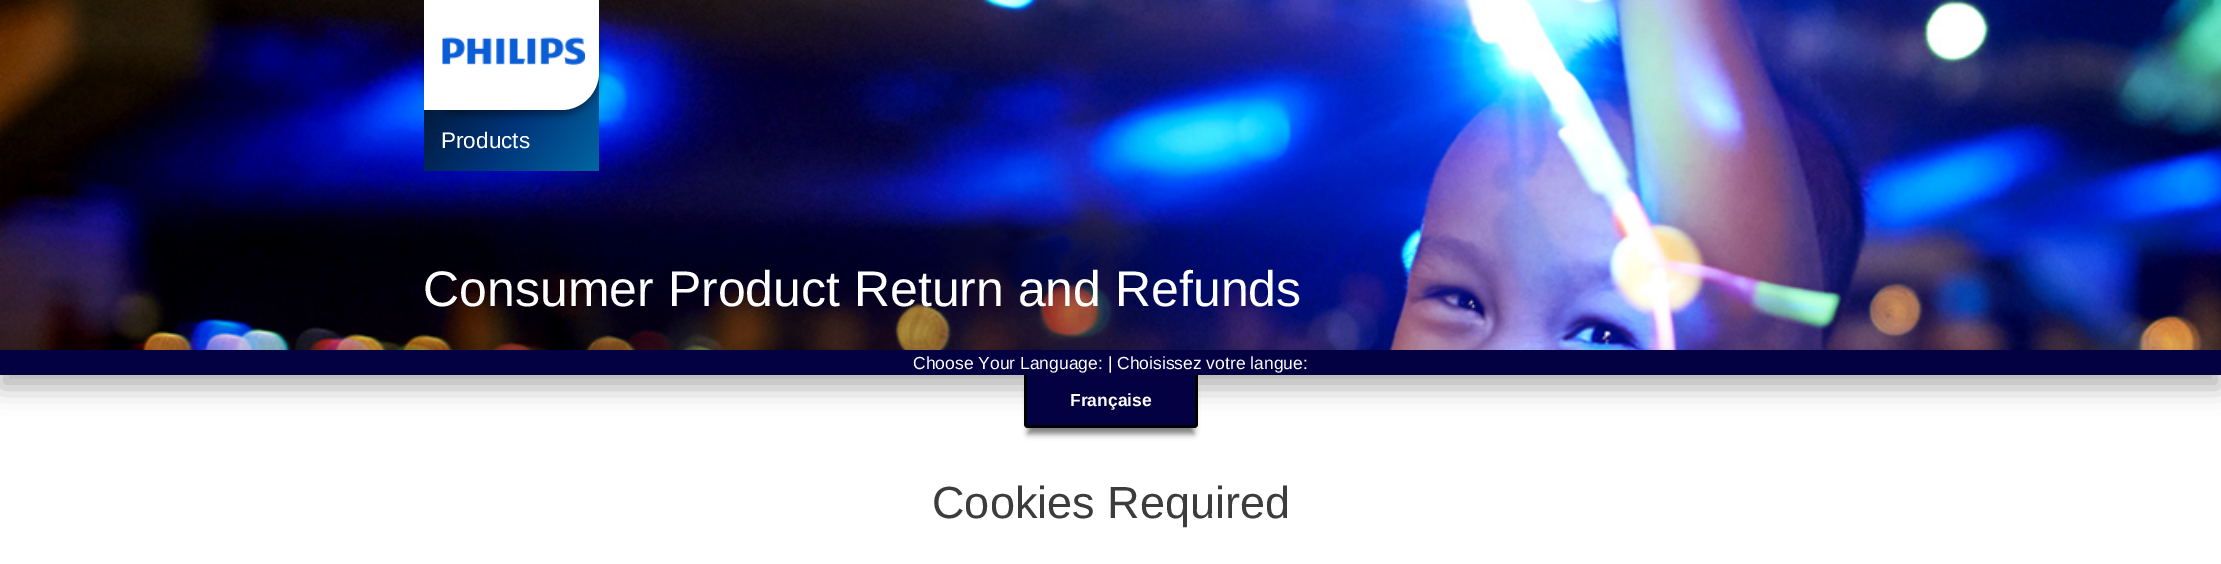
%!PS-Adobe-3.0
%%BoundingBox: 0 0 2221 564
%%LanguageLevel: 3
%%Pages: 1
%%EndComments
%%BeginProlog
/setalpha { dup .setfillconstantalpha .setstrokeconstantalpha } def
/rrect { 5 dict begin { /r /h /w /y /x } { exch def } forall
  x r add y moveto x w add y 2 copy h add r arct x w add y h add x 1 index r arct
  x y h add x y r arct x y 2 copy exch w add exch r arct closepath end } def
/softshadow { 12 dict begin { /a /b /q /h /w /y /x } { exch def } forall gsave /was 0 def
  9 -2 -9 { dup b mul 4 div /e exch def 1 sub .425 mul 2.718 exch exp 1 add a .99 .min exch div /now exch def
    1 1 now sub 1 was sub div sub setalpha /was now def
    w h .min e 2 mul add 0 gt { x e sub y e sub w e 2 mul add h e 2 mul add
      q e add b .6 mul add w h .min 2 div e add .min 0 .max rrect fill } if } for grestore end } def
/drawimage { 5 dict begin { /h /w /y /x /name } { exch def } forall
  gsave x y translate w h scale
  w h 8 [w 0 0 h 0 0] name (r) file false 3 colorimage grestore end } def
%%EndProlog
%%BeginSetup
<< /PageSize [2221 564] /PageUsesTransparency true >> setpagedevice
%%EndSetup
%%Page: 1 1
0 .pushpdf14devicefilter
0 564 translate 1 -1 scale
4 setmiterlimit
1 setgray
0 0 2221 564 rectfill
(images/1.raw) 0 0 2221 350 drawimage
gsave newpath 424 72 moveto 599 72 lineto 599 171 lineto 424 171 lineto closepath clip newpath
<< /ShadingType 2 /ColorSpace /DeviceRGB /Coords [412 16 610 155] /Extend [true true] /Function << /FunctionType 3 /Domain [0 1] /Functions [<< /FunctionType 2 /Domain [0 1] /C0 [0.012 0.027 0.059] /C1 [0 0.204 0.471] /N 1 >> << /FunctionType 2 /Domain [0 1] /C0 [0 0.204 0.471] /C1 [0 0.4 0.631] /N 1 >>] /Bounds [0.6] /Encode [0 1 0 1] >> >> shfill grestore
0 setgray
424 5 175 110 38 4 0.4 softshadow
1 setgray
newpath 424 0 moveto 599 0 lineto 599 72 lineto 599 93 582 110 561 110 curveto 424 110 lineto closepath fill
(images/2.raw) 442 37 143 28 drawimage
0 setgray
0 363 2221 25 0 12.5 0.3 softshadow
0.012 0.004 0.255 setrgbcolor
0 350 2221 25 rectfill
0 setgray
1028 389 166 45 0 3 0.5 softshadow
0.012 0.004 0.255 setrgbcolor
newpath 1024 375 moveto 1198 375 lineto 1198 424 lineto 1198 426 1196 428 1194 428 curveto 1028 428 lineto 1026 428 1024 426 1024 424 curveto closepath fill
0 setgray
newpath 1024 375 moveto 1198 375 lineto 1198 424 lineto 1198 426 1196 428 1194 428 curveto 1028 428 lineto 1026 428 1024 426 1024 424 curveto closepath 1027 375 moveto 1195 375 lineto 1195 424 lineto 1195 424 1195 425 1194 425 curveto 1028 425 lineto 1027 425 1027 424 1027 424 curveto closepath eofill
/LiberationSans-Regular [22.5 0 0 -22.5 0 0] selectfont
1 setgray
441 148 moveto (Products) show
/LiberationSans-Regular [50 0 0 -50 0 0] selectfont
423 306 moveto (Consumer Product Return and Refunds) show
/LiberationSans-Regular [17.5 0 0 -17.5 0 0] selectfont
913 369 moveto (Choose Your Language: | Choisissez votre langue:) show
/LiberationSans-Bold [17.5 0 0 -17.5 0 0] selectfont
1070 406 moveto (Française) show
/LiberationSans-Regular [45 0 0 -45 0 0] selectfont
0.235 setgray
932 518 moveto (Cookies Required) show
.poppdf14devicefilter showpage
%%EOF
